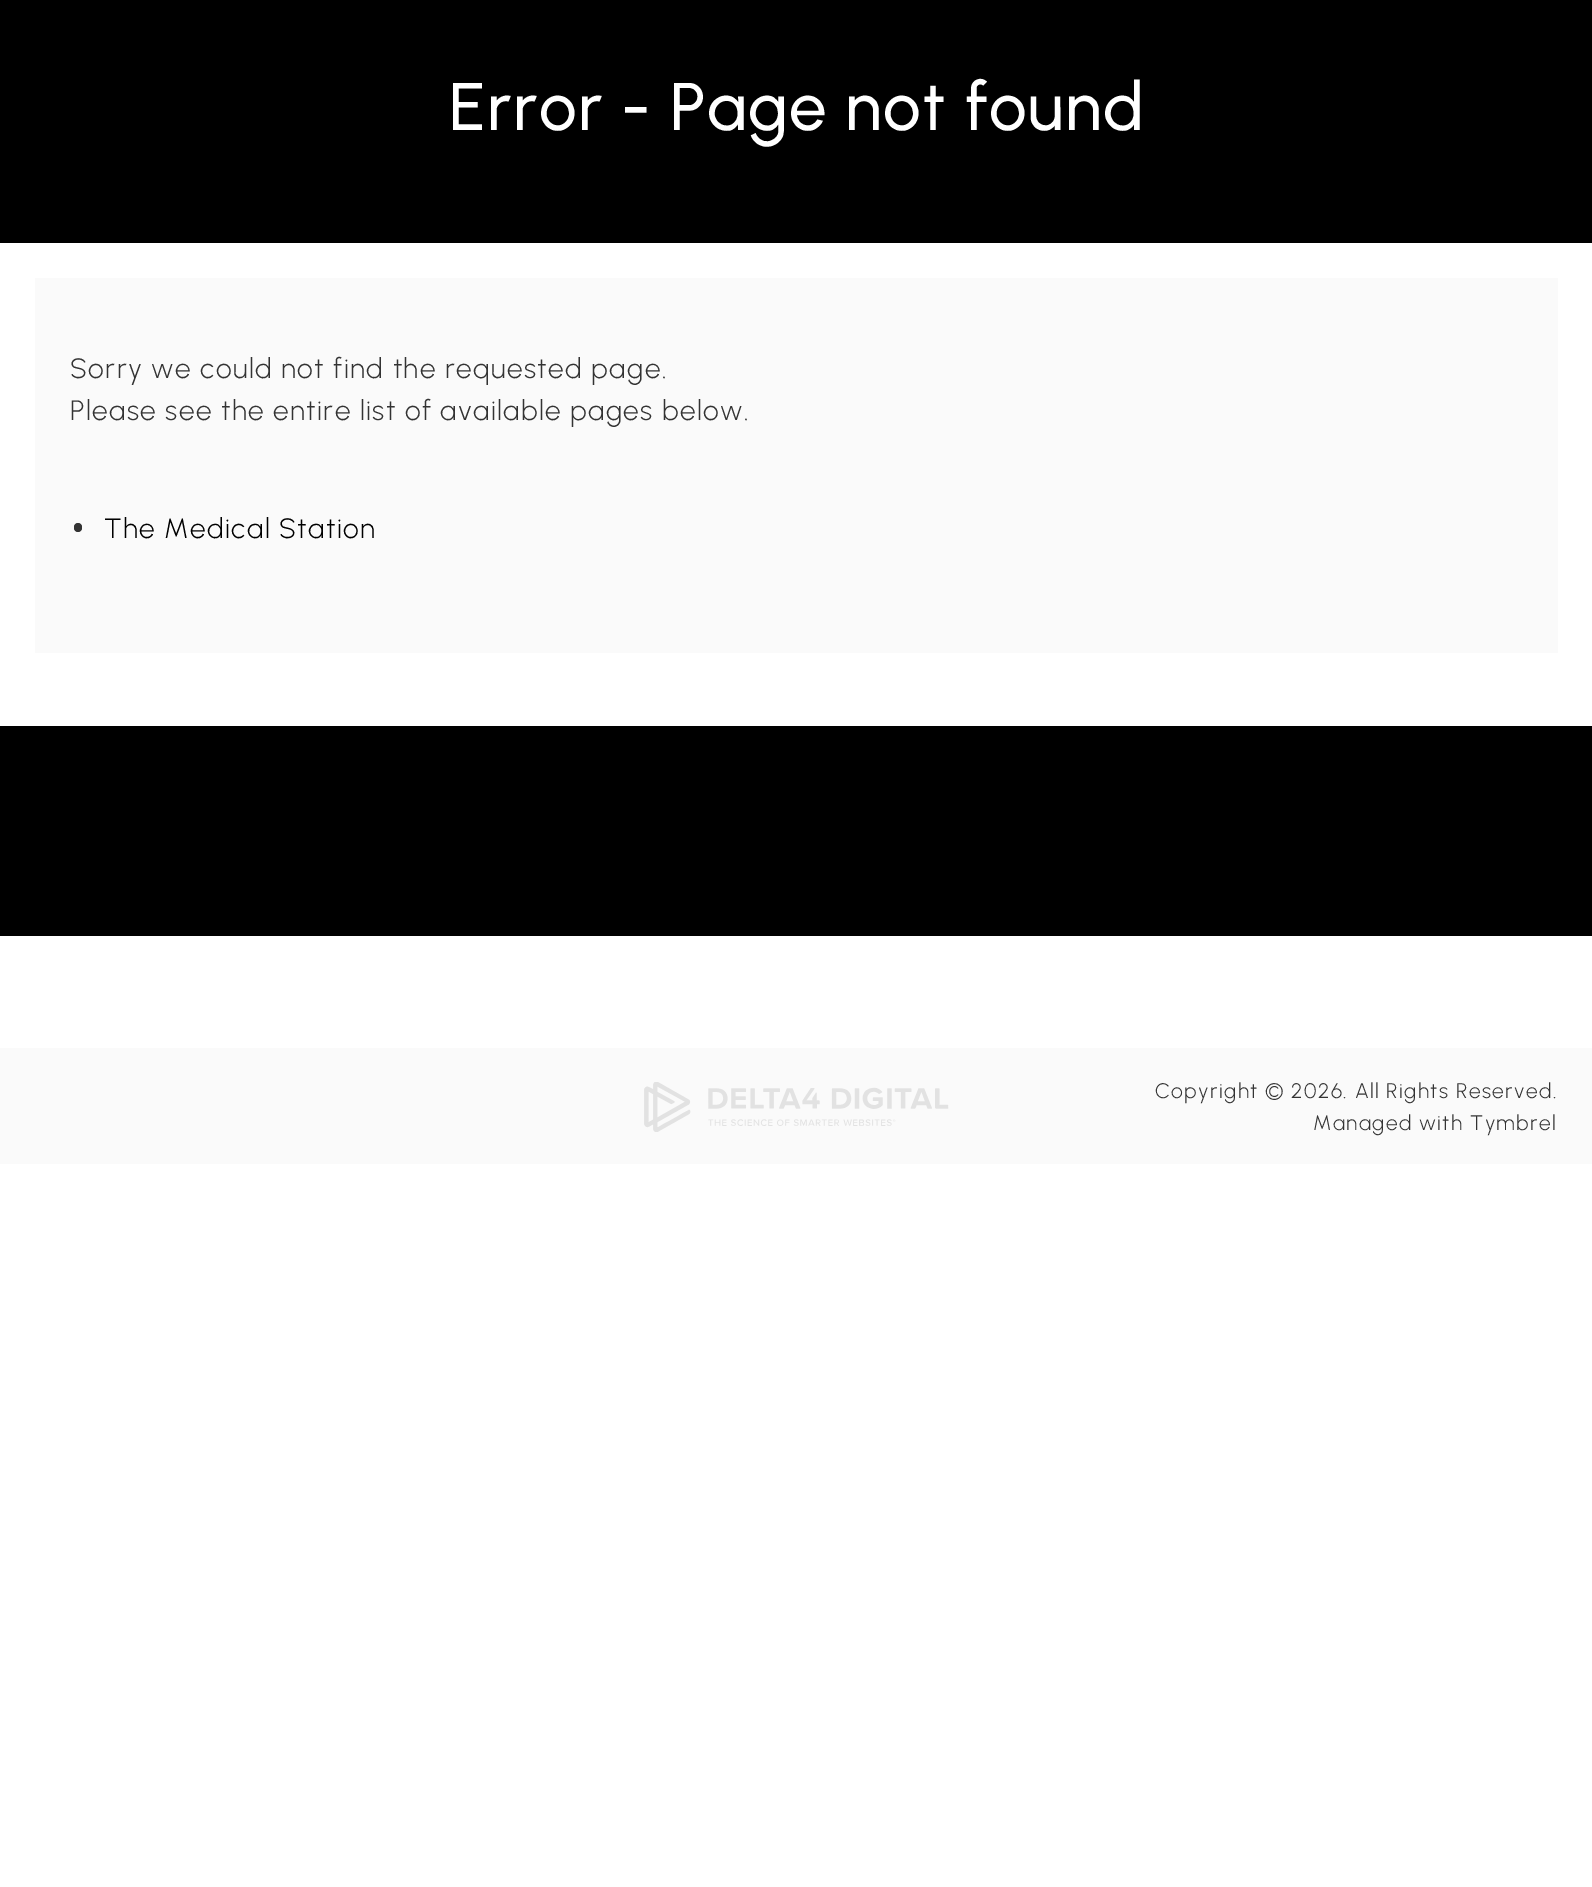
%!PS-Adobe-3.0
%%BoundingBox: 0 0 1592 1887
%%LanguageLevel: 3
%%Pages: 1
%%EndComments
%%BeginProlog
/rrect { 5 dict begin { /r /h /w /y /x } { exch def } forall
  x r add y moveto x w add y 2 copy h add r arct x w add y h add x 1 index r arct
  x y h add x y r arct x y 2 copy exch w add exch r arct closepath end } def
/drawimage { 5 dict begin { /h /w /y /x /name } { exch def } forall
  gsave x y translate w h scale
  w h 8 [w 0 0 h 0 0] name (r) file false 3 colorimage grestore end } def
%%EndProlog
%%BeginSetup
<< /PageSize [1592 1887] >> setpagedevice
%%EndSetup
%%Page: 1 1
0 1887 translate 1 -1 scale
4 setmiterlimit
1 setgray
0 0 1592 1887 rectfill
0 setgray
0 0 1592 243 rectfill
0.98 setgray
35 278 1523 375 rectfill
0.2 setgray
74 523 8 9 4 rrect fill
0 setgray
0 726 1592 210 rectfill
0.98 setgray
0 1048 1592 116 rectfill
(images/1.raw) 644 1082 305 50 drawimage
/Urbanist-Medium [67.25 0 0 -67.25 0 0] selectfont
1 setgray
449 130 moveto 1.4 0 (Error - Page not found) ashow
/Urbanist-Light [28 0 0 -28 0 0] selectfont
0.2 setgray
70 378 moveto 1.4 0 (Sorry we could not find the requested page.) ashow
70 420 moveto 1.4 0 (Please see the entire list of available pages below.) ashow
0 setgray
104 538 moveto 1.4 0 (The Medical Station) ashow
/Urbanist-Light [21 0 0 -21 0 0] selectfont
0.2 setgray
1155 1098 moveto 1.4 0 (Copyright © 2026. All Rights Reserved.) ashow
1313 1130 moveto 1.4 0 (Managed with Tymbrel) ashow
showpage
%%EOF
